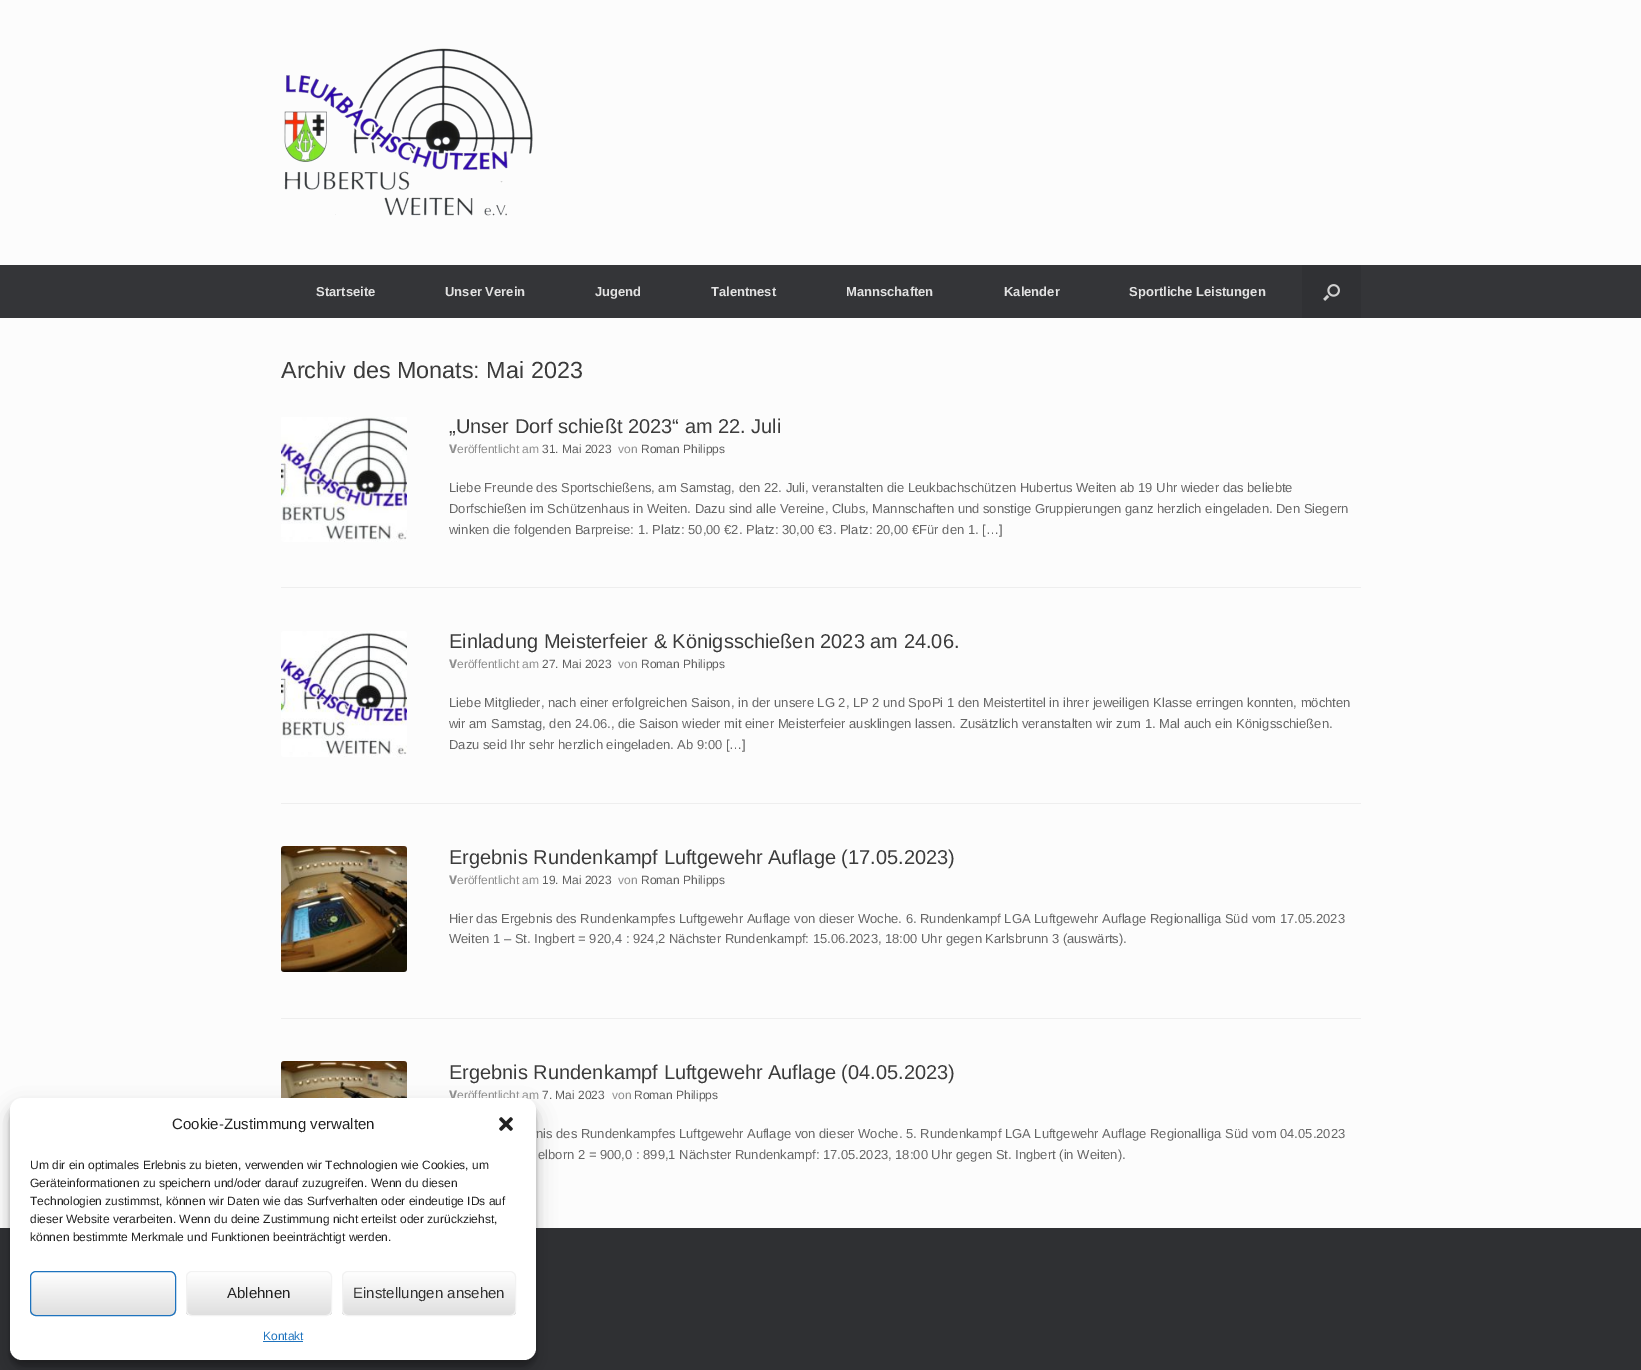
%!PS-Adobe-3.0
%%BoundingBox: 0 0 1641 1370
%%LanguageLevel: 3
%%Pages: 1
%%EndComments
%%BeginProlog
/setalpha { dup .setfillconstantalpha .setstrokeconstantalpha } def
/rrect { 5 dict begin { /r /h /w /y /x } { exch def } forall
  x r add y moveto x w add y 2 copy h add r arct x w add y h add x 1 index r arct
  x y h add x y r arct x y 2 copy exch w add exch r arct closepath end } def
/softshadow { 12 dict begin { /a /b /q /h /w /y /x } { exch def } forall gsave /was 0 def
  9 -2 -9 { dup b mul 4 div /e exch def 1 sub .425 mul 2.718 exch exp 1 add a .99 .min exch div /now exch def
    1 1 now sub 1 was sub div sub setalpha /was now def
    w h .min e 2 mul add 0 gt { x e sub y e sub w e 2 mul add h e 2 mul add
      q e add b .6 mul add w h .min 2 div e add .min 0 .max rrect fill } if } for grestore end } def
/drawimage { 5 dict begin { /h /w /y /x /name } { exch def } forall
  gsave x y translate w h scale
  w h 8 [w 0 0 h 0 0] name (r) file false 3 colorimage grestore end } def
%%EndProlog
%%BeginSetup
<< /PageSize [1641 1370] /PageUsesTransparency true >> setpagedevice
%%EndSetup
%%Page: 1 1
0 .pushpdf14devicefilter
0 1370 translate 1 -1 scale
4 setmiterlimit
0.184 0.188 0.2 setrgbcolor
0 0 1641 1370 rectfill
0.988 setgray
0 0 1641 265 rectfill
(images/1.raw) 284 48 249 168 drawimage
0.204 0.208 0.22 setrgbcolor
0 265 1641 53 rectfill
0.188 0.192 0.204 setrgbcolor
1302 265 59 53 rectfill
(images/2.raw) 1323 284 17 17 drawimage
0.988 setgray
0 318 1641 910 rectfill
0.933 setgray
281 587 1080 1 rectfill
(images/3.raw) 281 417 126 125 drawimage
281 803 1080 1 rectfill
(images/4.raw) 281 631 126 126 drawimage
281 1018 1080 1 rectfill
(images/5.raw) 281 846 126 126 drawimage
(images/6.raw) 281 1061 126 37 drawimage
0 setgray
10 1104 526 262 12 3 0.23 softshadow
10 1108 526 262 12 10 0.19 softshadow
/LiberationSans-Bold [13 0 0 -13 0 0] selectfont
0.886 setgray
316 296 moveto (Startseite) show
445 296 moveto (Unser Verein) show
595 296 moveto (Jugend) show
711 296 moveto (Talentnest) show
846 296 moveto (Mannschaften) show
1004 296 moveto (Kalender) show
1129 296 moveto (Sportliche Leistungen) show
/LiberationSans-Regular [23.4 0 0 -23.4 0 0] selectfont
0.231 setgray
281 378 moveto (Archiv des Monats: Mai 2023) show
/LiberationSans-Regular [20 0 0 -20 0 0] selectfont
449 433 moveto („Unser Dorf schießt 2023“ am 22. Juli) show
/NotoSans-ExtraBold [12 0 0 -12 0 0] selectfont
0.561 setgray
449 453 moveto (V) show
/LiberationSans-Regular [12 0 0 -12 0 0] selectfont
457 453 moveto (eröffentlicht am) show
0.369 setgray
542 453 moveto (31. Mai 2023) show
0.561 setgray
618 453 moveto (von) show
0.369 setgray
641 453 moveto (Roman Philipps) show
/LiberationSans-Regular [13 0 0 -13 0 0] selectfont
0.4 setgray
449 492 moveto (Liebe Freunde des Sportschießens, am Samstag, den 22. Juli, veranstalten die Leukbachschützen Hubertus Weiten ab 19 Uhr wieder das beliebte) show
449 513 moveto (Dorfschießen im Schützenhaus in Weiten. Dazu sind alle Vereine, Clubs, Mannschaften und sonstige Gruppierungen ganz herzlich eingeladen. Den Siegern) show
449 534 moveto (winken die folgenden Barpreise: 1. Platz: 50,00 €2. Platz: 30,00 €3. Platz: 20,00 €Für den 1. […]) show
/LiberationSans-Regular [20 0 0 -20 0 0] selectfont
0.231 setgray
449 648 moveto (Einladung Meisterfeier & Königsschießen 2023 am 24.06.) show
/NotoSans-ExtraBold [12 0 0 -12 0 0] selectfont
0.561 setgray
449 668 moveto (V) show
/LiberationSans-Regular [12 0 0 -12 0 0] selectfont
457 668 moveto (eröffentlicht am) show
0.369 setgray
542 668 moveto (27. Mai 2023) show
0.561 setgray
618 668 moveto (von) show
0.369 setgray
641 668 moveto (Roman Philipps) show
/LiberationSans-Regular [13 0 0 -13 0 0] selectfont
0.4 setgray
449 707 moveto (Liebe Mitglieder, nach einer erfolgreichen Saison, in der unsere LG 2, LP 2 und SpoPi 1 den Meistertitel in ihrer jeweiligen Klasse erringen konnten, möchten) show
449 728 moveto (wir am Samstag, den 24.06., die Saison wieder mit einer Meisterfeier ausklingen lassen. Zusätzlich veranstalten wir zum 1. Mal auch ein Königsschießen.) show
449 749 moveto (Dazu seid Ihr sehr herzlich eingeladen. Ab 9:00 […]) show
/LiberationSans-Regular [20 0 0 -20 0 0] selectfont
0.231 setgray
449 864 moveto (Ergebnis Rundenkampf Luftgewehr Auflage \(17.05.2023\)) show
/NotoSans-ExtraBold [12 0 0 -12 0 0] selectfont
0.561 setgray
449 884 moveto (V) show
/LiberationSans-Regular [12 0 0 -12 0 0] selectfont
457 884 moveto (eröffentlicht am) show
0.369 setgray
542 884 moveto (19. Mai 2023) show
0.561 setgray
618 884 moveto (von) show
0.369 setgray
641 884 moveto (Roman Philipps) show
/LiberationSans-Regular [13 0 0 -13 0 0] selectfont
0.4 setgray
449 923 moveto (Hier das Ergebnis des Rundenkampfes Luftgewehr Auflage von dieser Woche. 6. Rundenkampf LGA Luftgewehr Auflage Regionalliga Süd vom 17.05.2023) show
449 943 moveto (Weiten 1 – St. Ingbert = 920,4 : 924,2 Nächster Rundenkampf: 15.06.2023, 18:00 Uhr gegen Karlsbrunn 3 \(auswärts\).) show
/LiberationSans-Regular [20 0 0 -20 0 0] selectfont
0.231 setgray
449 1079 moveto (Ergebnis Rundenkampf Luftgewehr Auflage \(04.05.2023\)) show
/NotoSans-ExtraBold [12 0 0 -12 0 0] selectfont
0.561 setgray
449 1099 moveto (V) show
/LiberationSans-Regular [12 0 0 -12 0 0] selectfont
457 1099 moveto (eröffentlicht am) show
0.369 setgray
542 1099 moveto (7. Mai 2023) show
0.561 setgray
612 1099 moveto (von) show
0.369 setgray
634 1099 moveto (Roman Philipps) show
/LiberationSans-Regular [13 0 0 -13 0 0] selectfont
0.4 setgray
536 1138 moveto (nis des Rundenkampfes Luftgewehr Auflage von dieser Woche. 5. Rundenkampf LGA Luftgewehr Auflage Regionalliga Süd vom 04.05.2023) show
538 1159 moveto (elborn 2 = 900,0 : 899,1 Nächster Rundenkampf: 17.05.2023, 18:00 Uhr gegen St. Ingbert \(in Weiten\).) show
1 setgray
10 1098 526 262 12 rrect fill
/LiberationSans-Regular [15 0 0 -15 0 0] selectfont
0.133 setgray
172 1129 moveto (Cookie-Zustimmung verwalten) show
(images/7.raw) 499 1117 14 14 drawimage
/LiberationSans-Regular [12 0 0 -12 0 0] selectfont
30 1169 moveto (Um dir ein optimales Erlebnis zu bieten, verwenden wir Technologien wie Cookies, um) show
30 1187 moveto (Geräteinformationen zu speichern und/oder darauf zuzugreifen. Wenn du diesen) show
30 1205 moveto (Technologien zustimmst, können wir Daten wie das Surfverhalten oder eindeutige IDs auf) show
30 1223 moveto (dieser Website verarbeiten. Wenn du deine Zustimmung nicht erteilst oder zurückziehst,) show
30 1241 moveto (können bestimmte Merkmale und Funktionen beeinträchtigt werden.) show
gsave
30 1271 146 45 6 rrect clip newpath
gsave newpath 30 1272 moveto 176 1272 lineto 176 1315 lineto 30 1315 lineto closepath clip newpath
<< /ShadingType 2 /ColorSpace /DeviceRGB /Coords [31 1315 31 1272] /Extend [true true] /Function << /FunctionType 2 /Domain [0 1] /C0 [0.875 0.875 0.875] /C1 [1 1 1] /N 1 >> >> shfill grestore
grestore
0.118 0.451 0.745 setrgbcolor
30.5 1271.5 145 44 5.5 rrect stroke
gsave
186 1271 146 45 6 rrect clip newpath
gsave newpath 186 1272 moveto 332 1272 lineto 332 1315 lineto 186 1315 lineto closepath clip newpath
<< /ShadingType 2 /ColorSpace /DeviceRGB /Coords [187 1315 187 1272] /Extend [true true] /Function << /FunctionType 2 /Domain [0 1] /C0 [0.875 0.875 0.875] /C1 [1 1 1] /N 1 >> >> shfill grestore
grestore
0.949 setgray
186.5 1271.5 145 44 5.5 rrect stroke
/LiberationSans-Regular [15 0 0 -15 0 0] selectfont
0.133 setgray
227 1298 moveto (Ablehnen) show
gsave
342 1271 174 45 6 rrect clip newpath
gsave newpath 342 1272 moveto 516 1272 lineto 516 1315 lineto 342 1315 lineto closepath clip newpath
<< /ShadingType 2 /ColorSpace /DeviceRGB /Coords [343 1315 343 1272] /Extend [true true] /Function << /FunctionType 2 /Domain [0 1] /C0 [0.875 0.875 0.875] /C1 [1 1 1] /N 1 >> >> shfill grestore
grestore
0.949 setgray
342.5 1271.5 173 44 5.5 rrect stroke
0.2 setgray
353 1298 moveto (Einstellungen ansehen) show
/LiberationSans-Regular [12 0 0 -12 0 0] selectfont
0.118 0.451 0.745 setrgbcolor
263 1340 moveto (Kontakt) show
263 1341 40 1 rectfill
.poppdf14devicefilter showpage
%%EOF
